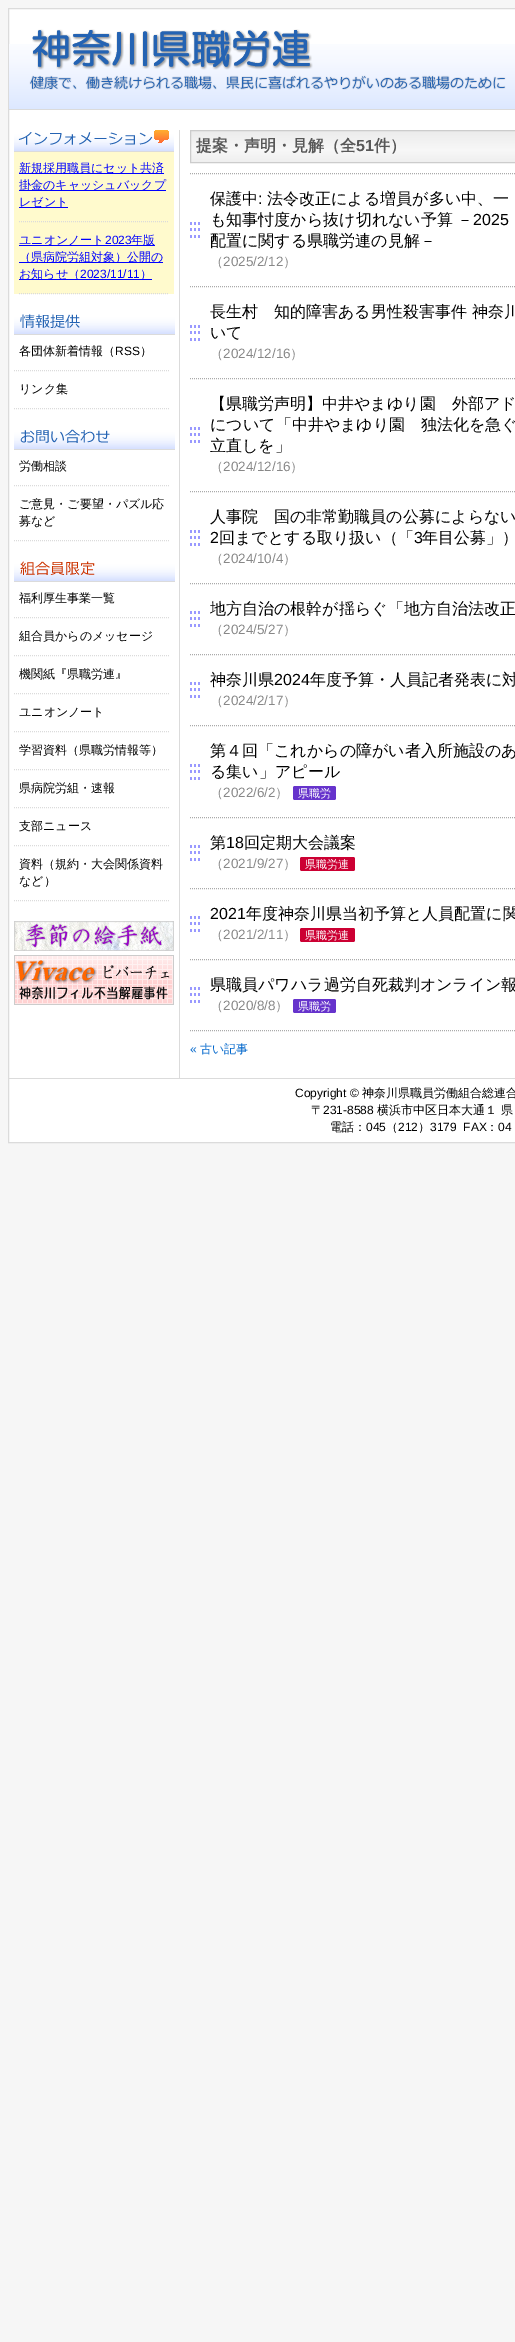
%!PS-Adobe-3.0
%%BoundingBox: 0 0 515 2342
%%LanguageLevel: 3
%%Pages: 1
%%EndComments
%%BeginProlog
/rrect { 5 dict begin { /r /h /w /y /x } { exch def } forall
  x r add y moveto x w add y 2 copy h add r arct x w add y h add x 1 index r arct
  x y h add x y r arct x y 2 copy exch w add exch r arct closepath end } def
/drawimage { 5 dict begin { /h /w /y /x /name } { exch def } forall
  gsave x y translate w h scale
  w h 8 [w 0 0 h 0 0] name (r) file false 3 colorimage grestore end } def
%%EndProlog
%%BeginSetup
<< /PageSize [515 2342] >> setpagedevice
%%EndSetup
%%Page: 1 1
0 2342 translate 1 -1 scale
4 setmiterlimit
0.965 setgray
0 0 515 2342 rectfill
1 setgray
newpath 8.5 8.5 moveto 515.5 8.5 lineto 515.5 1142.5 lineto 8.5 1142.5 lineto closepath gsave fill grestore
0.859 setgray
stroke
(images/1.raw) 9 44 506 65 drawimage
9 109 506 1 rectfill
(images/2.raw) 29 29 477 61 drawimage
(images/3.raw) 14 130 160 22 drawimage
1 0.98 0.804 setrgbcolor
14 152 160 142 rectfill
0.859 setgray
[1 1] 0 setdash
newpath 19 221.5 moveto 169 221.5 lineto stroke
0 0 1 setrgbcolor
19 173 145 1 rectfill
19 190 147 1 rectfill
19 207 49 1 rectfill
0.859 setgray
newpath 19 293.5 moveto 169 293.5 lineto stroke
0 0 1 setrgbcolor
19 245 136 1 rectfill
19 262 144 1 rectfill
19 279 133 1 rectfill
(images/4.raw) 14 314 161 21 drawimage
0.859 setgray
newpath 14 370.5 moveto 169 370.5 lineto stroke
newpath 14 408.5 moveto 169 408.5 lineto stroke
(images/5.raw) 14 429 161 21 drawimage
newpath 14 485.5 moveto 169 485.5 lineto stroke
newpath 14 540.5 moveto 169 540.5 lineto stroke
(images/6.raw) 14 561 161 21 drawimage
newpath 14 617.5 moveto 169 617.5 lineto stroke
newpath 14 655.5 moveto 169 655.5 lineto stroke
newpath 14 693.5 moveto 169 693.5 lineto stroke
newpath 14 731.5 moveto 169 731.5 lineto stroke
newpath 14 769.5 moveto 169 769.5 lineto stroke
newpath 14 807.5 moveto 169 807.5 lineto stroke
newpath 14 845.5 moveto 169 845.5 lineto stroke
newpath 14 900.5 moveto 169 900.5 lineto stroke
(images/7.raw) 14 921 160 30 drawimage
(images/8.raw) 14 955 160 50 drawimage
179 130 1 948 rectfill
(images/9.raw) 191 131 324 31 drawimage
0.8 setgray
[] 0 setdash
190.5 130.5 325 32 rectstroke
0.667 setgray
[1 1] 0 setdash
newpath 190 173.5 moveto 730 173.5 lineto stroke
(images/10.raw) 190 222 10 16 drawimage
newpath 190 286.5 moveto 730 286.5 lineto stroke
(images/10.raw) 190 325 10 16 drawimage
newpath 190 378.5 moveto 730 378.5 lineto stroke
(images/10.raw) 190 427 10 16 drawimage
newpath 190 491.5 moveto 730 491.5 lineto stroke
(images/10.raw) 190 530 10 16 drawimage
newpath 190 583.5 moveto 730 583.5 lineto stroke
(images/10.raw) 190 611 10 16 drawimage
newpath 190 654.5 moveto 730 654.5 lineto stroke
(images/10.raw) 190 682 10 16 drawimage
newpath 190 725.5 moveto 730 725.5 lineto stroke
(images/10.raw) 190 764 10 16 drawimage
newpath 190 817.5 moveto 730 817.5 lineto stroke
0.4 0.2 0.8 setrgbcolor
293 786 43 14 2 rrect fill
(images/10.raw) 190 845 10 16 drawimage
0.667 setgray
newpath 190 888.5 moveto 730 888.5 lineto stroke
0.8 0 0.2 setrgbcolor
300 857 55 14 2 rrect fill
(images/10.raw) 190 916 10 16 drawimage
0.667 setgray
newpath 190 959.5 moveto 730 959.5 lineto stroke
0.8 0 0.2 setrgbcolor
300 928 55 14 2 rrect fill
(images/10.raw) 190 987 10 16 drawimage
0.667 setgray
newpath 190 1030.5 moveto 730 1030.5 lineto stroke
0.4 0.2 0.8 setrgbcolor
293 999 43 14 2 rrect fill
0.859 setgray
9 1078 506 1 rectfill
/WenQuanYiZenHei-Medium [12 0 0 -12 0 0] selectfont
0 0 1 setrgbcolor
19 172 moveto (新規採用職員にセット共済) show
19 189 moveto (掛金のキャッシュバックプ) show
19 206 moveto (レゼント) show
19 244 moveto (ユニオンノート) show
/LiberationSans-Regular [12 0 0 -12 0 0] selectfont
105 244 moveto (2023) show
/WenQuanYiZenHei-Medium [12 0 0 -12 0 0] selectfont
131 244 moveto (年版) show
19 261 moveto (（県病院労組対象）公開の) show
19 278 moveto (お知らせ（) show
/LiberationSans-Regular [12 0 0 -12 0 0] selectfont
80 278 moveto (2023/11/11) show
/WenQuanYiZenHei-Medium [12 0 0 -12 0 0] selectfont
140 278 moveto (）) show
0 setgray
19 355 moveto (各団体新着情報（) show
/LiberationSans-Regular [12 0 0 -12 0 0] selectfont
115 355 moveto (RSS) show
/WenQuanYiZenHei-Medium [12 0 0 -12 0 0] selectfont
140 355 moveto (）) show
19 393 moveto (リンク集) show
19 470 moveto (労働相談) show
19 508 moveto (ご意見・ご要望・パズル応) show
19 525 moveto (募など) show
19 602 moveto (福利厚生事業一覧) show
19 640 moveto (組合員からのメッセージ) show
19 678 moveto (機関紙『県職労連』) show
19 716 moveto (ユニオンノート) show
19 754 moveto (学習資料（県職労情報等）) show
19 792 moveto (県病院労組・速報) show
19 830 moveto (支部ニュース) show
19 868 moveto (資料（規約・大会関係資料) show
19 885 moveto (など）) show
/WenQuanYiZenHei-Bold [16 0 0 -16 0 0] selectfont
0.345 setgray
196 151 moveto (提案・声明・見解（全) show
/LiberationSans-Bold [16 0 0 -16 0 0] selectfont
356 151 moveto (51) show
/WenQuanYiZenHei-Bold [16 0 0 -16 0 0] selectfont
374 151 moveto (件）) show
/WenQuanYiZenHei-Medium [16 0 0 -16 0 0] selectfont
0 setgray
210 204 moveto (保護中) show
/LiberationSans-Regular [16 0 0 -16 0 0] selectfont
258 204 moveto (:) show
/WenQuanYiZenHei-Medium [16 0 0 -16 0 0] selectfont
267 204 moveto (法令改正による増員が多い中、一) show
210 225 moveto (も知事忖度から抜け切れない予算 －) show
/LiberationSans-Regular [16 0 0 -16 0 0] selectfont
473 225 moveto (2025) show
/WenQuanYiZenHei-Medium [16 0 0 -16 0 0] selectfont
210 246 moveto (配置に関する県職労連の見解－) show
/WenQuanYiZenHei-Medium [13.5 0 0 -13.5 0 0] selectfont
0.533 setgray
210 266 moveto (（) show
/LiberationSans-Regular [13.5 0 0 -13.5 0 0] selectfont
223 266 moveto (2025/2/12) show
/WenQuanYiZenHei-Medium [13.5 0 0 -13.5 0 0] selectfont
283 266 moveto (）) show
/WenQuanYiZenHei-Medium [16 0 0 -16 0 0] selectfont
0 setgray
210 317 moveto (長生村　知的障害ある男性殺害事件 神奈川) show
210 338 moveto (いて) show
/WenQuanYiZenHei-Medium [13.5 0 0 -13.5 0 0] selectfont
0.533 setgray
210 358 moveto (（) show
/LiberationSans-Regular [13.5 0 0 -13.5 0 0] selectfont
223 358 moveto (2024/12/16) show
/WenQuanYiZenHei-Medium [13.5 0 0 -13.5 0 0] selectfont
290 358 moveto (）) show
/WenQuanYiZenHei-Medium [16 0 0 -16 0 0] selectfont
0 setgray
210 409 moveto (【県職労声明】中井やまゆり園　外部アド) show
210 430 moveto (について「中井やまゆり園　独法化を急ぐ) show
210 451 moveto (立直しを」) show
/WenQuanYiZenHei-Medium [13.5 0 0 -13.5 0 0] selectfont
0.533 setgray
210 471 moveto (（) show
/LiberationSans-Regular [13.5 0 0 -13.5 0 0] selectfont
223 471 moveto (2024/12/16) show
/WenQuanYiZenHei-Medium [13.5 0 0 -13.5 0 0] selectfont
290 471 moveto (）) show
/WenQuanYiZenHei-Medium [16 0 0 -16 0 0] selectfont
0 setgray
210 522 moveto (人事院　国の非常勤職員の公募によらない) show
/LiberationSans-Regular [16 0 0 -16 0 0] selectfont
210 543 moveto (2) show
/WenQuanYiZenHei-Medium [16 0 0 -16 0 0] selectfont
219 543 moveto (回までとする取り扱い（「) show
/LiberationSans-Regular [16 0 0 -16 0 0] selectfont
414 543 moveto (3) show
/WenQuanYiZenHei-Medium [16 0 0 -16 0 0] selectfont
422 543 moveto (年目公募」）) show
/WenQuanYiZenHei-Medium [13.5 0 0 -13.5 0 0] selectfont
0.533 setgray
210 563 moveto (（) show
/LiberationSans-Regular [13.5 0 0 -13.5 0 0] selectfont
223 563 moveto (2024/10/4) show
/WenQuanYiZenHei-Medium [13.5 0 0 -13.5 0 0] selectfont
283 563 moveto (）) show
/WenQuanYiZenHei-Medium [16 0 0 -16 0 0] selectfont
0 setgray
210 614 moveto (地方自治の根幹が揺らぐ「地方自治法改正) show
/WenQuanYiZenHei-Medium [13.5 0 0 -13.5 0 0] selectfont
0.533 setgray
210 634 moveto (（) show
/LiberationSans-Regular [13.5 0 0 -13.5 0 0] selectfont
223 634 moveto (2024/5/27) show
/WenQuanYiZenHei-Medium [13.5 0 0 -13.5 0 0] selectfont
283 634 moveto (）) show
/WenQuanYiZenHei-Medium [16 0 0 -16 0 0] selectfont
0 setgray
210 685 moveto (神奈川県) show
/LiberationSans-Regular [16 0 0 -16 0 0] selectfont
274 685 moveto (2024) show
/WenQuanYiZenHei-Medium [16 0 0 -16 0 0] selectfont
310 685 moveto (年度予算・人員記者発表に対) show
/WenQuanYiZenHei-Medium [13.5 0 0 -13.5 0 0] selectfont
0.533 setgray
210 705 moveto (（) show
/LiberationSans-Regular [13.5 0 0 -13.5 0 0] selectfont
223 705 moveto (2024/2/17) show
/WenQuanYiZenHei-Medium [13.5 0 0 -13.5 0 0] selectfont
283 705 moveto (）) show
/WenQuanYiZenHei-Medium [16 0 0 -16 0 0] selectfont
0 setgray
210 756 moveto (第４回「これからの障がい者入所施設のあ) show
210 777 moveto (る集い」アピール) show
/WenQuanYiZenHei-Medium [13.5 0 0 -13.5 0 0] selectfont
0.533 setgray
210 797 moveto (（) show
/LiberationSans-Regular [13.5 0 0 -13.5 0 0] selectfont
223 797 moveto (2022/6/2) show
/WenQuanYiZenHei-Medium [13.5 0 0 -13.5 0 0] selectfont
275 797 moveto (）) show
/WenQuanYiZenHei-Medium [11 0 0 -11 0 0] selectfont
1 setgray
298 797 moveto (県職労) show
/WenQuanYiZenHei-Medium [16 0 0 -16 0 0] selectfont
0 setgray
210 848 moveto (第) show
/LiberationSans-Regular [16 0 0 -16 0 0] selectfont
226 848 moveto (18) show
/WenQuanYiZenHei-Medium [16 0 0 -16 0 0] selectfont
244 848 moveto (回定期大会議案) show
/WenQuanYiZenHei-Medium [13.5 0 0 -13.5 0 0] selectfont
0.533 setgray
210 868 moveto (（) show
/LiberationSans-Regular [13.5 0 0 -13.5 0 0] selectfont
223 868 moveto (2021/9/27) show
/WenQuanYiZenHei-Medium [13.5 0 0 -13.5 0 0] selectfont
283 868 moveto (）) show
/WenQuanYiZenHei-Medium [11 0 0 -11 0 0] selectfont
1 setgray
305 868 moveto (県職労連) show
/LiberationSans-Regular [16 0 0 -16 0 0] selectfont
0 setgray
210 919 moveto (2021) show
/WenQuanYiZenHei-Medium [16 0 0 -16 0 0] selectfont
246 919 moveto (年度神奈川県当初予算と人員配置に関) show
/WenQuanYiZenHei-Medium [13.5 0 0 -13.5 0 0] selectfont
0.533 setgray
210 939 moveto (（) show
/LiberationSans-Regular [13.5 0 0 -13.5 0 0] selectfont
223 939 moveto (2021/2/11) show
/WenQuanYiZenHei-Medium [13.5 0 0 -13.5 0 0] selectfont
283 939 moveto (）) show
/WenQuanYiZenHei-Medium [11 0 0 -11 0 0] selectfont
1 setgray
305 939 moveto (県職労連) show
/WenQuanYiZenHei-Medium [16 0 0 -16 0 0] selectfont
0 setgray
210 990 moveto (県職員パワハラ過労自死裁判オンライン報) show
/WenQuanYiZenHei-Medium [13.5 0 0 -13.5 0 0] selectfont
0.533 setgray
210 1010 moveto (（) show
/LiberationSans-Regular [13.5 0 0 -13.5 0 0] selectfont
223 1010 moveto (2020/8/8) show
/WenQuanYiZenHei-Medium [13.5 0 0 -13.5 0 0] selectfont
275 1010 moveto (）) show
/WenQuanYiZenHei-Medium [11 0 0 -11 0 0] selectfont
1 setgray
298 1010 moveto (県職労) show
/LiberationSans-Regular [12 0 0 -12 0 0] selectfont
0 0.4 0.8 setrgbcolor
190 1053 moveto («) show
/WenQuanYiZenHei-Medium [12 0 0 -12 0 0] selectfont
200 1053 moveto (古い記事) show
/LiberationSans-Regular [12 0 0 -12 0 0] selectfont
0 setgray
295 1097 moveto (Copyright ©) show
/WenQuanYiZenHei-Medium [12 0 0 -12 0 0] selectfont
362 1097 moveto (神奈川県職員労働組合総連合) show
311 1114 moveto (〒) show
/LiberationSans-Regular [12 0 0 -12 0 0] selectfont
323 1114 moveto (231-8588) show
/WenQuanYiZenHei-Medium [12 0 0 -12 0 0] selectfont
377 1114 moveto (横浜市中区日本大通１ 県) show
330 1131 moveto (電話：) show
/LiberationSans-Regular [12 0 0 -12 0 0] selectfont
366 1131 moveto (045) show
/WenQuanYiZenHei-Medium [12 0 0 -12 0 0] selectfont
386 1131 moveto (（) show
/LiberationSans-Regular [12 0 0 -12 0 0] selectfont
398 1131 moveto (212) show
/WenQuanYiZenHei-Medium [12 0 0 -12 0 0] selectfont
418 1131 moveto (）) show
/LiberationSans-Regular [12 0 0 -12 0 0] selectfont
430 1131 moveto (3179  FAX) show
/WenQuanYiZenHei-Medium [12 0 0 -12 0 0] selectfont
486 1131 moveto (：) show
/LiberationSans-Regular [12 0 0 -12 0 0] selectfont
498 1131 moveto (04) show
showpage
%%EOF
